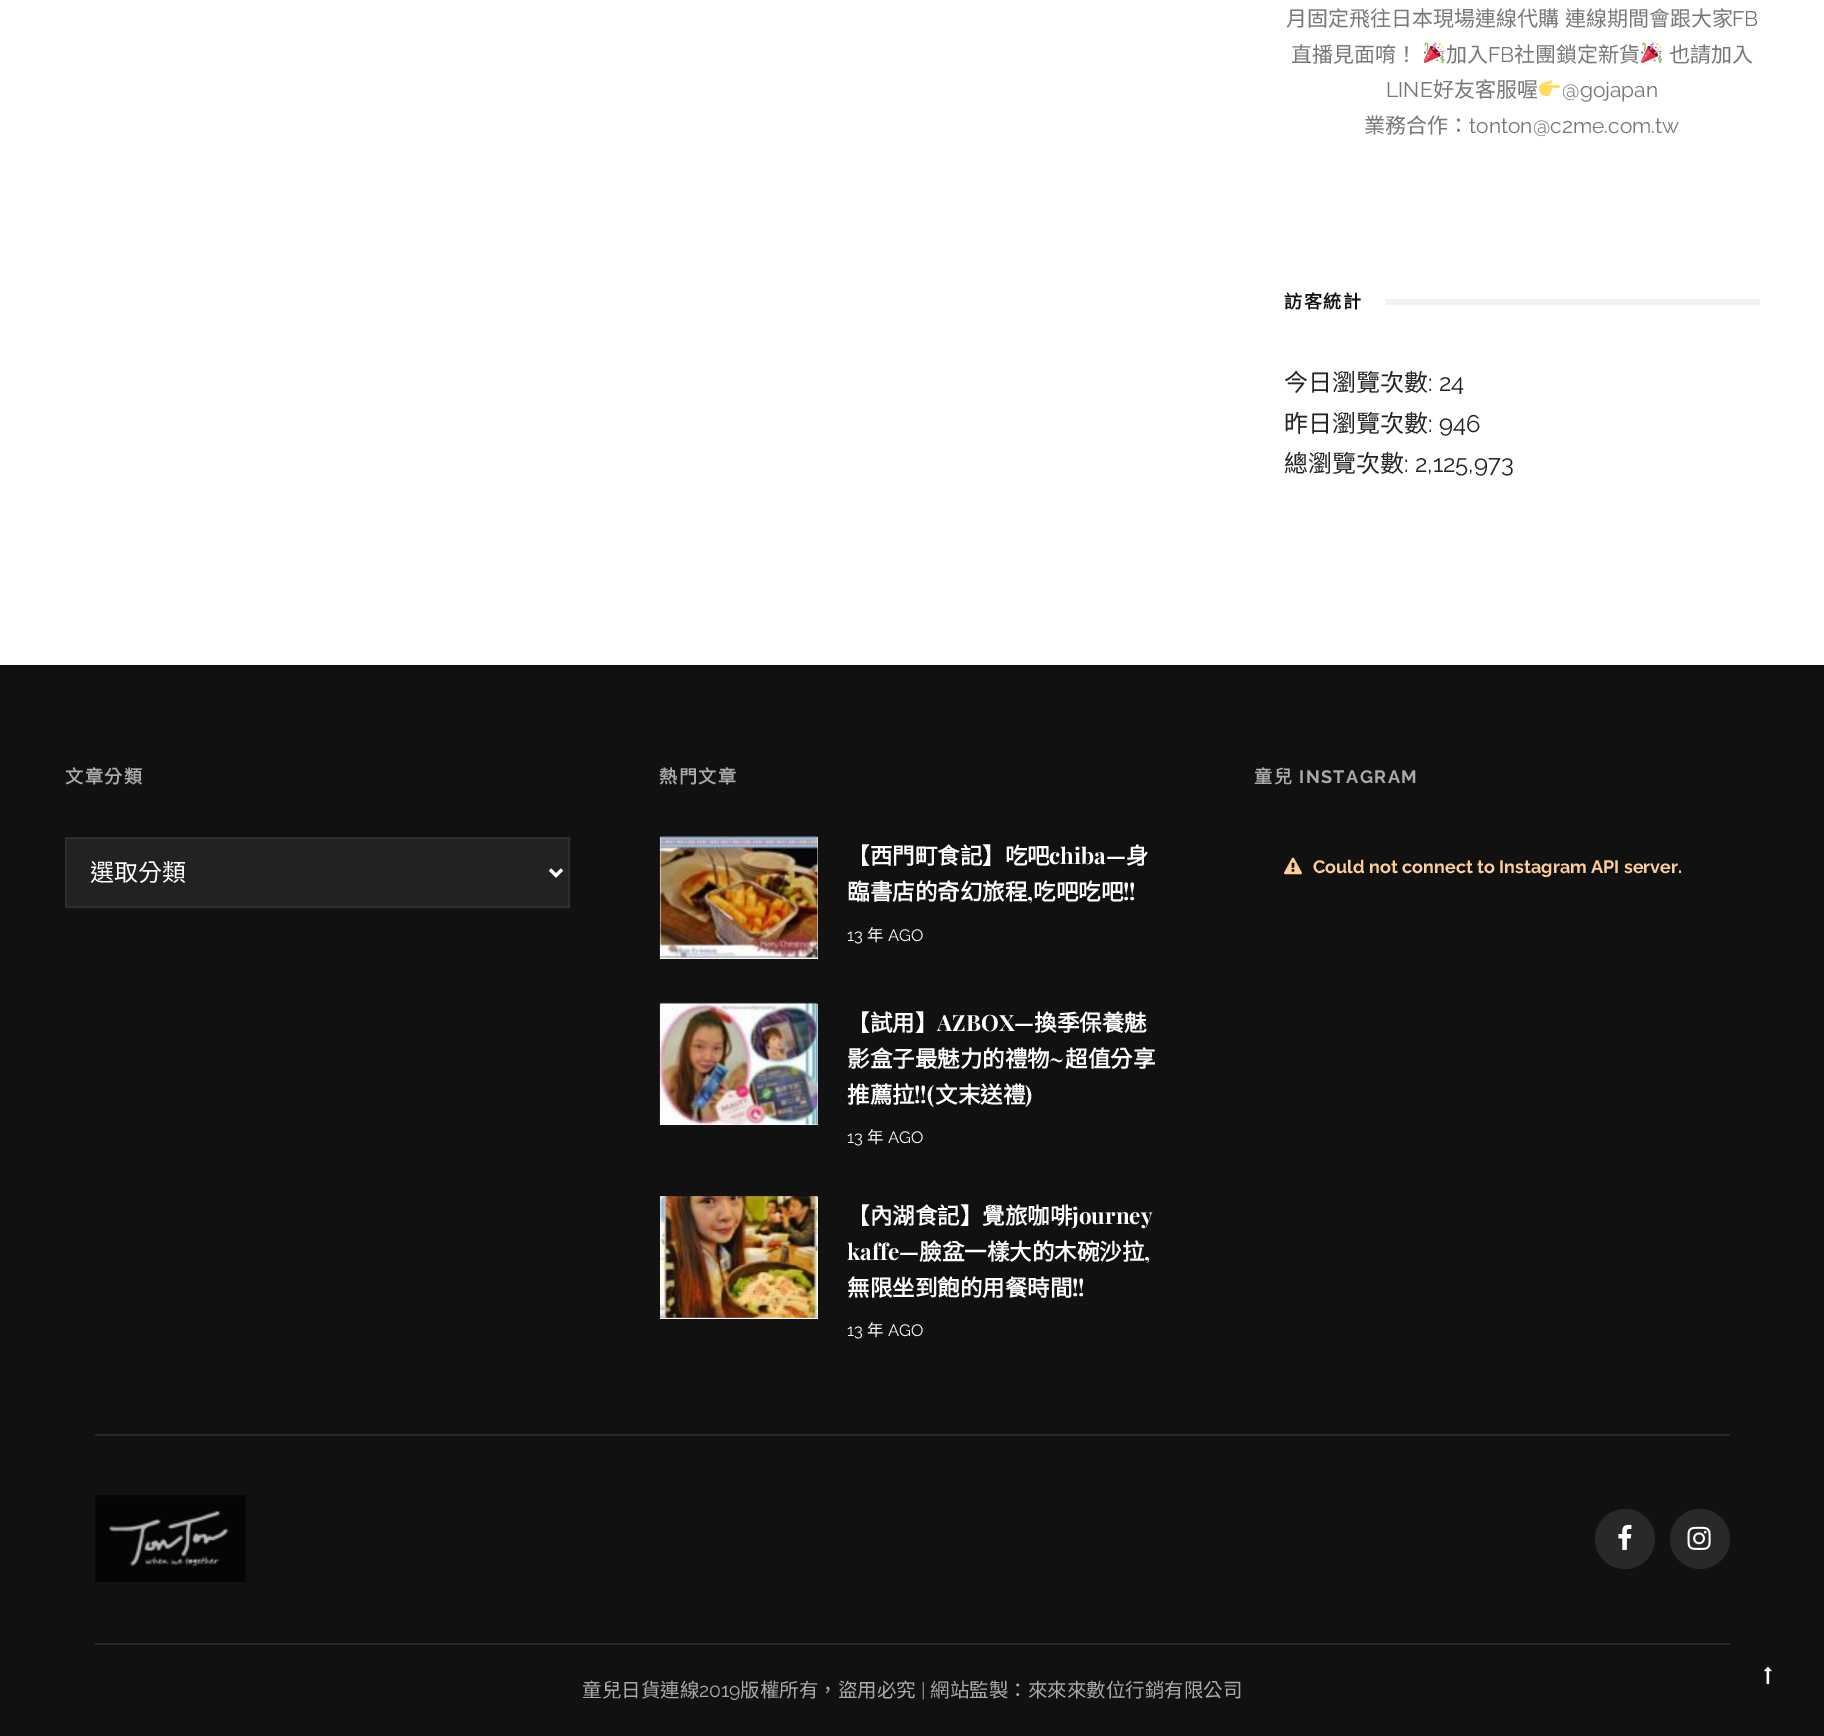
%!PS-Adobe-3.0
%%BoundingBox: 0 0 1824 1736
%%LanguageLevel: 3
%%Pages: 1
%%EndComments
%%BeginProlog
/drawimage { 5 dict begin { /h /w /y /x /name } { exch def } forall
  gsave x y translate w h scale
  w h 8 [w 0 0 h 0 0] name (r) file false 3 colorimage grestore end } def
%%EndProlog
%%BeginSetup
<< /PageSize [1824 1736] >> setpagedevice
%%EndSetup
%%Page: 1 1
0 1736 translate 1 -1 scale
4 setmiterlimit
1 setgray
0 0 1824 1736 rectfill
(images/1.raw) 1424 42 21 21 drawimage
(images/2.raw) 1641 42 21 21 drawimage
(images/3.raw) 1539 80 21 17 drawimage
0.949 setgray
1385 299 375 6 rectfill
0.067 setgray
0 665 1824 1071 rectfill
0.133 setgray
newpath 66 838 moveto 569 838 lineto 569 907 lineto 66 907 lineto closepath gsave fill grestore
0.176 setgray
2 setlinewidth
stroke
1 setgray
3 setlinewidth
newpath 550 869.5 moveto 556 875.5 lineto 562 869.5 lineto stroke
660 837 158 122 rectfill
(images/4.raw) 659 836 159 123 drawimage
660 1004 158 121 rectfill
(images/5.raw) 659 1002 159 123 drawimage
660 1197 158 122 rectfill
(images/6.raw) 660 1196 158 122 drawimage
(images/7.raw) 1284 857 18 18 drawimage
0.161 setgray
95 1434 1635 2 rectfill
(images/8.raw) 95 1495 151 87 drawimage
newpath 1625 1539 30 0 360 arc closepath fill
(images/9.raw) 1618 1524 14 26 drawimage
newpath 1700 1539 30 0 360 arc closepath fill
(images/10.raw) 1687 1526 24 24 drawimage
95 1643 1635 2 rectfill
(images/11.raw) 1764 1666 8 19 drawimage
/NotoSansCJKTC-Regular [21 0 0 -21 0 0] selectfont
0.467 setgray
1286 26 moveto 1 0 32 (月固定飛往日本現場連線代購 連線期間會跟大家) widthshow
/Raleway-Regular [21 0 0 -21 0 0] selectfont
1732 26 moveto (FB) show
/NotoSansCJKTC-Regular [21 0 0 -21 0 0] selectfont
1291 62 moveto (直播見面唷！) show
1446 62 moveto (加入) show
/Raleway-Regular [21 0 0 -21 0 0] selectfont
1488 62 moveto (FB) show
/NotoSansCJKTC-Regular [21 0 0 -21 0 0] selectfont
1514 62 moveto (社團鎖定新貨) show
1669 62 moveto (也請加入) show
/Raleway-Regular [21 0 0 -21 0 0] selectfont
1386 97 moveto (LINE) show
/NotoSansCJKTC-Regular [21 0 0 -21 0 0] selectfont
1433 97 moveto (好友客服喔) show
/Raleway-Regular [21 0 0 -21 0 0] selectfont
1562 97 moveto (@gojapan) show
/NotoSansCJKTC-Regular [21 0 0 -21 0 0] selectfont
1364 133 moveto (業務合作：) show
/Raleway-Regular [21 0 0 -21 0 0] selectfont
1469 133 moveto (tonton@c2me.com.tw) show
/NotoSansCJKTC-Bold [18 0 0 -18 0 0] selectfont
0.067 setgray
1284 308 moveto 1.5 0 (訪客統計) ashow
/NotoSansCJKTC-Regular [24 0 0 -24 0 0] selectfont
0.141 setgray
1284 391 moveto (今日瀏覽次數) show
/Raleway-Regular [24 0 0 -24 0 0] selectfont
1428 391 moveto (: 24) show
/NotoSansCJKTC-Regular [24 0 0 -24 0 0] selectfont
1284 432 moveto (昨日瀏覽次數) show
/Raleway-Regular [24 0 0 -24 0 0] selectfont
1428 432 moveto (: 946) show
/NotoSansCJKTC-Regular [24 0 0 -24 0 0] selectfont
1284 472 moveto (總瀏覽次數) show
/Raleway-Regular [24 0 0 -24 0 0] selectfont
1404 472 moveto (: 2,125,973) show
/NotoSansCJKTC-Bold [18 0 0 -18 0 0] selectfont
0.667 setgray
65 783 moveto 1.5 0 (文章分類) ashow
/NotoSansCJKTC-Regular [24 0 0 -24 0 0] selectfont
1 setgray
90 881 moveto (選取分類) show
/NotoSansCJKTC-Bold [18 0 0 -18 0 0] selectfont
0.667 setgray
659 783 moveto 1.5 0 (熱門文章) ashow
/NotoSansCJKTC-Bold [22.5 0 0 -22.5 0 0] selectfont
1 setgray
847 864 moveto (【西門町食記】吃吧) show
/PlayfairDisplay-Bold [22.5 0 0 -22.5 0 0] selectfont
1049 864 moveto (chiba—) show
/NotoSansCJKTC-Bold [22.5 0 0 -22.5 0 0] selectfont
1126 864 moveto (身) show
847 900 moveto (臨書店的奇幻旅程) show
/PlayfairDisplay-Bold [22.5 0 0 -22.5 0 0] selectfont
1027 900 moveto (,) show
/NotoSansCJKTC-Bold [22.5 0 0 -22.5 0 0] selectfont
1033 900 moveto (吃吧吃吧) show
/PlayfairDisplay-Bold [22.5 0 0 -22.5 0 0] selectfont
1123 900 moveto (!!) show
/Raleway-Regular [16.5 0 0 -16.5 0 0] selectfont
847 941 moveto (13) show
/NotoSansCJKTC-Regular [16.5 0 0 -16.5 0 0] selectfont
867 941 moveto (年) show
/Raleway-Regular [16.5 0 0 -16.5 0 0] selectfont
888 941 moveto (AGO) show
/NotoSansCJKTC-Bold [22.5 0 0 -22.5 0 0] selectfont
847 1031 moveto (【試用】) show
/PlayfairDisplay-Bold [22.5 0 0 -22.5 0 0] selectfont
937 1031 moveto (AZBOX—) show
/NotoSansCJKTC-Bold [22.5 0 0 -22.5 0 0] selectfont
1034 1031 moveto (換季保養魅) show
847 1067 moveto (影盒子最魅力的禮物) show
/PlayfairDisplay-Bold [22.5 0 0 -22.5 0 0] selectfont
1049 1067 moveto (~) show
/NotoSansCJKTC-Bold [22.5 0 0 -22.5 0 0] selectfont
1065 1067 moveto (超值分享) show
847 1103 moveto (推薦拉) show
/PlayfairDisplay-Bold [22.5 0 0 -22.5 0 0] selectfont
914 1103 moveto (!!\() show
/NotoSansCJKTC-Bold [22.5 0 0 -22.5 0 0] selectfont
935 1103 moveto (文末送禮) show
/PlayfairDisplay-Bold [22.5 0 0 -22.5 0 0] selectfont
1025 1103 moveto (\)) show
/Raleway-Regular [16.5 0 0 -16.5 0 0] selectfont
847 1143 moveto (13) show
/NotoSansCJKTC-Regular [16.5 0 0 -16.5 0 0] selectfont
867 1143 moveto (年) show
/Raleway-Regular [16.5 0 0 -16.5 0 0] selectfont
888 1143 moveto (AGO) show
/NotoSansCJKTC-Bold [22.5 0 0 -22.5 0 0] selectfont
847 1224 moveto (【內湖食記】覺旅咖啡) show
/PlayfairDisplay-Bold [22.5 0 0 -22.5 0 0] selectfont
1072 1224 moveto (journey) show
847 1260 moveto (kaffe—) show
/NotoSansCJKTC-Bold [22.5 0 0 -22.5 0 0] selectfont
919 1260 moveto (臉盆一樣大的木碗沙拉) show
/PlayfairDisplay-Bold [22.5 0 0 -22.5 0 0] selectfont
1144 1260 moveto (,) show
/NotoSansCJKTC-Bold [22.5 0 0 -22.5 0 0] selectfont
847 1296 moveto (無限坐到飽的用餐時間) show
/PlayfairDisplay-Bold [22.5 0 0 -22.5 0 0] selectfont
1072 1296 moveto (!!) show
/Raleway-Regular [16.5 0 0 -16.5 0 0] selectfont
847 1336 moveto (13) show
/NotoSansCJKTC-Regular [16.5 0 0 -16.5 0 0] selectfont
867 1336 moveto (年) show
/Raleway-Regular [16.5 0 0 -16.5 0 0] selectfont
888 1336 moveto (AGO) show
/NotoSansCJKTC-Bold [18 0 0 -18 0 0] selectfont
0.667 setgray
1254 783 moveto 1.5 0 (童兒) ashow
/Raleway-Bold [18 0 0 -18 0 0] selectfont
1299 783 moveto 1.5 0 (INSTAGRAM) ashow
0.996 0.804 0.596 setrgbcolor
1313 873 moveto (Could not connect to Instagram API server.) show
/NotoSansCJKTC-Regular [19.5 0 0 -19.5 0 0] selectfont
0.667 setgray
582 1697 moveto (童兒日貨連線) show
/Raleway-Regular [19.5 0 0 -19.5 0 0] selectfont
699 1697 moveto (2019) show
/NotoSansCJKTC-Regular [19.5 0 0 -19.5 0 0] selectfont
740 1697 moveto (版權所有，盜用必究) show
/Raleway-Regular [19.5 0 0 -19.5 0 0] selectfont
921 1697 moveto (|) show
/NotoSansCJKTC-Regular [19.5 0 0 -19.5 0 0] selectfont
930 1697 moveto (網站監製：來來來數位行銷有限公司) show
showpage
%%EOF
